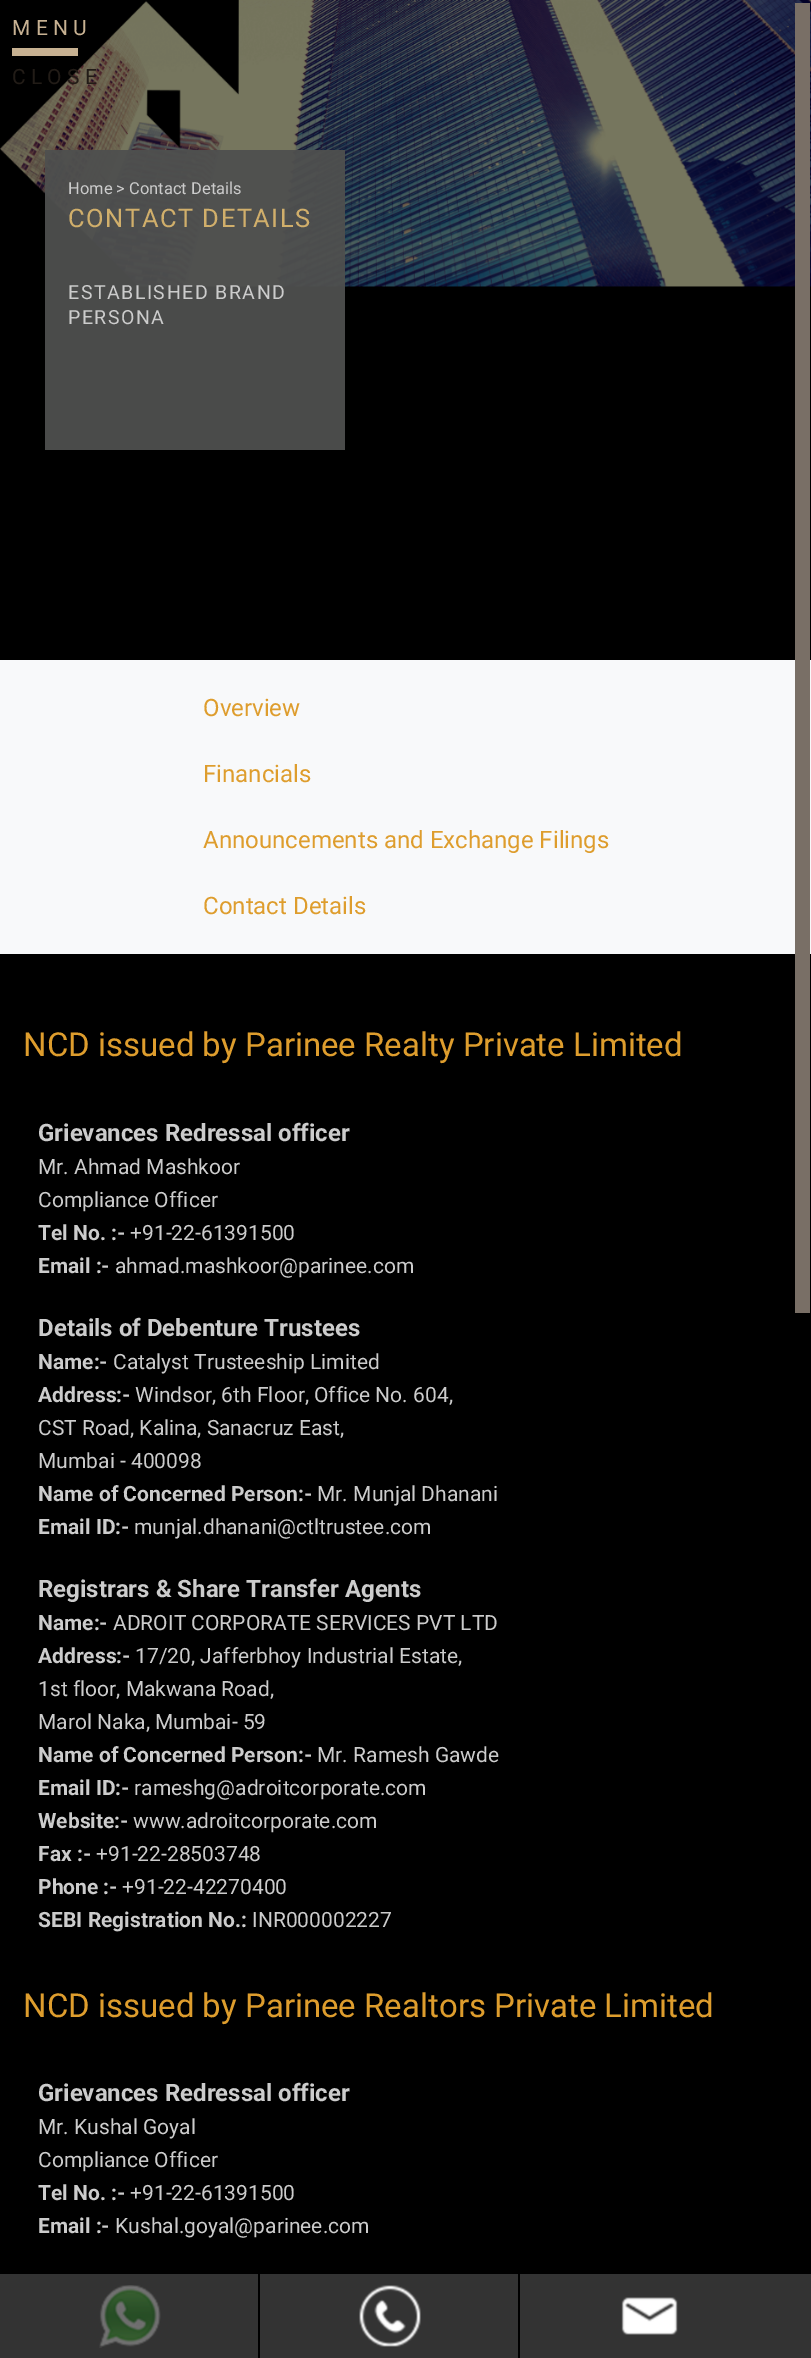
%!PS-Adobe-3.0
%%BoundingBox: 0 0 811 2358
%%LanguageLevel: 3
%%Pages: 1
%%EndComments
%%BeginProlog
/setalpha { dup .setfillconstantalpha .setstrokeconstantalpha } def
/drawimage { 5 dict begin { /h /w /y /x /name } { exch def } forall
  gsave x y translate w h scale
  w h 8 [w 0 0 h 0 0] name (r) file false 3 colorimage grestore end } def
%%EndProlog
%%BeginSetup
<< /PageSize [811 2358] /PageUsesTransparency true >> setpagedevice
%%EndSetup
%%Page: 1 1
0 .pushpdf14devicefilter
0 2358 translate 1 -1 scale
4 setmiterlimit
0 setgray
0 0 811 2358 rectfill
(images/1.raw) 0 0 811 287 drawimage
0.78 0.694 0.573 setrgbcolor
12 48 66 8 rectfill
0.95 setalpha
0.306 0.31 0.306 setrgbcolor
45 150 300 300 rectfill
1 setalpha
0.973 0.976 0.98 setrgbcolor
0 660 811 294 rectfill
0.475 0.435 0.4 setrgbcolor
795 3 15 1310 rectfill
0.2 setgray
0 2274 811 84 rectfill
0 setgray
258 2274 2 84 rectfill
(images/2.raw) 99 2285 62 63 drawimage
518 2274 2 84 rectfill
(images/3.raw) 359 2285 62 62 drawimage
(images/4.raw) 621 2297 57 38 drawimage
/Roboto-Regular [21 0 0 -21 0 0] selectfont
0.78 0.694 0.573 setrgbcolor
12 35 moveto 5.25 0 (MENU) ashow
0.133 0.11 0.09 setrgbcolor
12 84 moveto 5.25 0 (CLOSE) ashow
/Roboto-Regular [16.5 0 0 -16.5 0 0] selectfont
0.8 setgray
68 194 moveto (Home > Contact Details) show
/Roboto-Regular [25.5 0 0 -25.5 0 0] selectfont
0.82 0.686 0.42 setrgbcolor
68 227 moveto 1.5 0 (CONTACT DETAILS) ashow
/Roboto-Regular [19.5 0 0 -19.5 0 0] selectfont
0.8 setgray
68 299 moveto 1.5 0 (ESTABLISHED BRAND) ashow
68 324 moveto 1.5 0 (PERSONA) ashow
/Roboto-Regular [24 0 0 -24 0 0] selectfont
0.871 0.616 0.176 setrgbcolor
203 716 moveto (Overview) show
203 782 moveto (Financials) show
203 848 moveto (Announcements and Exchange Filings) show
203 914 moveto (Contact Details) show
/Roboto-Regular [33 0 0 -33 0 0] selectfont
23 1056 moveto (NCD issued by Parinee Realty Private Limited) show
/Roboto-Bold [24 0 0 -24 0 0] selectfont
0.8 setgray
38 1141 moveto (Grievances Redressal officer) show
/Roboto-Regular [21 0 0 -21 0 0] selectfont
38 1174 moveto (Mr. Ahmad Mashkoor) show
38 1207 moveto (Compliance Officer) show
/Roboto-Bold [21 0 0 -21 0 0] selectfont
38 1240 moveto (Tel No. :-) show
/Roboto-Regular [21 0 0 -21 0 0] selectfont
130 1240 moveto (+91-22-61391500) show
/Roboto-Bold [21 0 0 -21 0 0] selectfont
38 1273 moveto (Email :-) show
/Roboto-Regular [21 0 0 -21 0 0] selectfont
115 1273 moveto (ahmad.mashkoor@parinee.com) show
/Roboto-Bold [24 0 0 -24 0 0] selectfont
38 1336 moveto (Details of Debenture Trustees) show
/Roboto-Bold [21 0 0 -21 0 0] selectfont
38 1369 moveto (Name:-) show
/Roboto-Regular [21 0 0 -21 0 0] selectfont
113 1369 moveto (Catalyst Trusteeship Limited) show
/Roboto-Bold [21 0 0 -21 0 0] selectfont
38 1402 moveto (Address:-) show
/Roboto-Regular [21 0 0 -21 0 0] selectfont
135 1402 moveto (Windsor, 6th Floor, Office No. 604,) show
38 1435 moveto (CST Road, Kalina, Sanacruz East,) show
38 1468 moveto (Mumbai - 400098) show
/Roboto-Bold [21 0 0 -21 0 0] selectfont
38 1501 moveto (Name of Concerned Person:-) show
/Roboto-Regular [21 0 0 -21 0 0] selectfont
317 1501 moveto (Mr. Munjal Dhanani) show
/Roboto-Bold [21 0 0 -21 0 0] selectfont
38 1534 moveto (Email ID:-) show
/Roboto-Regular [21 0 0 -21 0 0] selectfont
134 1534 moveto (munjal.dhanani@ctltrustee.com) show
/Roboto-Bold [24 0 0 -24 0 0] selectfont
38 1597 moveto (Registrars & Share Transfer Agents) show
/Roboto-Bold [21 0 0 -21 0 0] selectfont
38 1630 moveto (Name:-) show
/Roboto-Regular [21 0 0 -21 0 0] selectfont
113 1630 moveto (ADROIT CORPORATE SERVICES PVT LTD) show
/Roboto-Bold [21 0 0 -21 0 0] selectfont
38 1663 moveto (Address:-) show
/Roboto-Regular [21 0 0 -21 0 0] selectfont
135 1663 moveto (17/20, Jafferbhoy Industrial Estate,) show
38 1696 moveto (1st floor, Makwana Road,) show
38 1729 moveto (Marol Naka, Mumbai- 59) show
/Roboto-Bold [21 0 0 -21 0 0] selectfont
38 1762 moveto (Name of Concerned Person:-) show
/Roboto-Regular [21 0 0 -21 0 0] selectfont
317 1762 moveto (Mr. Ramesh Gawde) show
/Roboto-Bold [21 0 0 -21 0 0] selectfont
38 1795 moveto (Email ID:-) show
/Roboto-Regular [21 0 0 -21 0 0] selectfont
134 1795 moveto (rameshg@adroitcorporate.com) show
/Roboto-Bold [21 0 0 -21 0 0] selectfont
38 1828 moveto (Website:-) show
/Roboto-Regular [21 0 0 -21 0 0] selectfont
133 1828 moveto (www.adroitcorporate.com) show
/Roboto-Bold [21 0 0 -21 0 0] selectfont
38 1861 moveto (Fax :-) show
/Roboto-Regular [21 0 0 -21 0 0] selectfont
96 1861 moveto (+91-22-28503748) show
/Roboto-Bold [21 0 0 -21 0 0] selectfont
38 1894 moveto (Phone :-) show
/Roboto-Regular [21 0 0 -21 0 0] selectfont
122 1894 moveto (+91-22-42270400) show
/Roboto-Bold [21 0 0 -21 0 0] selectfont
38 1927 moveto (SEBI Registration No.:) show
/Roboto-Regular [21 0 0 -21 0 0] selectfont
252 1927 moveto (INR000002227) show
/Roboto-Regular [33 0 0 -33 0 0] selectfont
0.871 0.616 0.176 setrgbcolor
23 2017 moveto (NCD issued by Parinee Realtors Private Limited) show
/Roboto-Bold [24 0 0 -24 0 0] selectfont
0.8 setgray
38 2101 moveto (Grievances Redressal officer) show
/Roboto-Regular [21 0 0 -21 0 0] selectfont
38 2134 moveto (Mr. Kushal Goyal) show
38 2167 moveto (Compliance Officer) show
/Roboto-Bold [21 0 0 -21 0 0] selectfont
38 2200 moveto (Tel No. :-) show
/Roboto-Regular [21 0 0 -21 0 0] selectfont
130 2200 moveto (+91-22-61391500) show
/Roboto-Bold [21 0 0 -21 0 0] selectfont
38 2233 moveto (Email :-) show
/Roboto-Regular [21 0 0 -21 0 0] selectfont
115 2233 moveto (Kushal.goyal@parinee.com) show
.poppdf14devicefilter showpage
%%EOF
